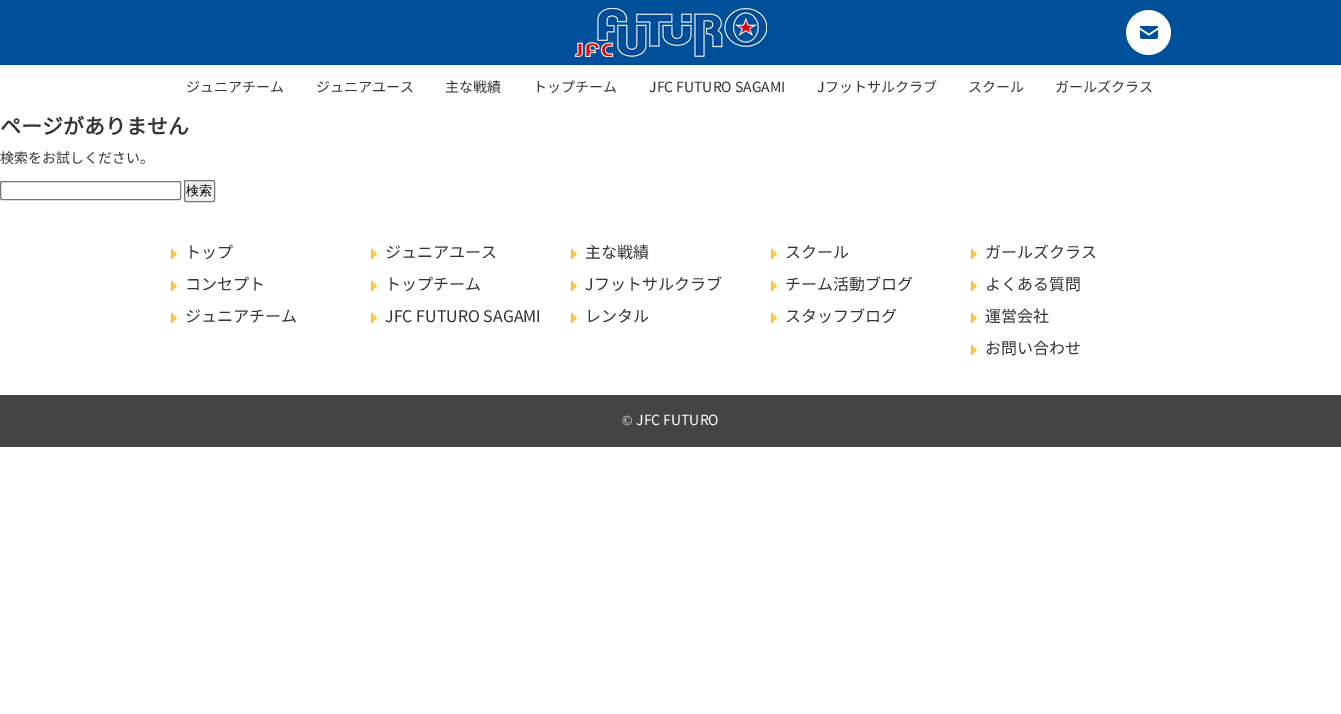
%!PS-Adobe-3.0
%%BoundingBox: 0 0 1341 714
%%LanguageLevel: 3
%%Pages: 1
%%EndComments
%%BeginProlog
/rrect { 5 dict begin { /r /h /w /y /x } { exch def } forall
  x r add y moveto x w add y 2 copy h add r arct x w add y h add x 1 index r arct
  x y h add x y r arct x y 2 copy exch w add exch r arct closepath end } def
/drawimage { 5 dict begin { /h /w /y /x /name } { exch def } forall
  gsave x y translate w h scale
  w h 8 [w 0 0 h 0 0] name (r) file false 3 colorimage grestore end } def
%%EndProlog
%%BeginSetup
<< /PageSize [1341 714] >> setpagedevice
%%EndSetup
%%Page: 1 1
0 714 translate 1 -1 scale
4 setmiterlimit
1 setgray
0 0 1341 714 rectfill
0 0.31 0.6 setrgbcolor
0 0 1341 65 rectfill
(images/1.raw) 575 8 192 49 drawimage
(images/2.raw) 1126 10 45 45 drawimage
0.463 setgray
0.5 181.5 180 18 1.5 rrect stroke
0.937 setgray
184.5 180.5 30 21 1.5 rrect gsave fill grestore
0.463 setgray
stroke
1 0.765 0.255 setrgbcolor
newpath 171 260 moveto 171 248 lineto 177 254 lineto closepath fill
newpath 171 292 moveto 171 280 lineto 177 286 lineto closepath fill
newpath 171 324 moveto 171 312 lineto 177 318 lineto closepath fill
newpath 371 260 moveto 371 248 lineto 377 254 lineto closepath fill
newpath 371 292 moveto 371 280 lineto 377 286 lineto closepath fill
newpath 371 324 moveto 371 312 lineto 377 318 lineto closepath fill
newpath 571 260 moveto 571 248 lineto 577 254 lineto closepath fill
newpath 571 292 moveto 571 280 lineto 577 286 lineto closepath fill
newpath 571 324 moveto 571 312 lineto 577 318 lineto closepath fill
newpath 771 260 moveto 771 248 lineto 777 254 lineto closepath fill
newpath 771 292 moveto 771 280 lineto 777 286 lineto closepath fill
newpath 771 324 moveto 771 312 lineto 777 318 lineto closepath fill
newpath 971 260 moveto 971 248 lineto 977 254 lineto closepath fill
newpath 971 292 moveto 971 280 lineto 977 286 lineto closepath fill
newpath 971 324 moveto 971 312 lineto 977 318 lineto closepath fill
newpath 971 356 moveto 971 344 lineto 977 350 lineto closepath fill
0.267 setgray
0 395 1341 52 rectfill
/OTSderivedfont-Regular [14 0 0 -14 0 0] selectfont
0.2 setgray
186 92 moveto (ジュニアチーム) show
316 92 moveto (ジュニアユース) show
445 92 moveto (主な戦績) show
533 92 moveto (トップチーム) show
649 92 moveto (JFC FUTURO SAGAMI) show
817 92 moveto (Jフットサルクラブ) show
968 92 moveto (スクール) show
1055 92 moveto (ガールズクラス) show
/OTSderivedfont-Bold [21 0 0 -21 0 0] selectfont
0 134 moveto (ページがありません) show
/OTSderivedfont-Regular [14 0 0 -14 0 0] selectfont
0 163 moveto (検索をお試しください。) show
/WenQuanYiZenHei-Medium [13 0 0 -13 0 0] selectfont
0 setgray
186 195 moveto (検索) show
/OTSderivedfont-Regular [16 0 0 -16 0 0] selectfont
0.2 setgray
185 258 moveto (トップ) show
185 290 moveto (コンセプト) show
185 322 moveto (ジュニアチーム) show
385 258 moveto (ジュニアユース) show
385 290 moveto (トップチーム) show
385 322 moveto (JFC FUTURO SAGAMI) show
585 258 moveto (主な戦績) show
585 290 moveto (Jフットサルクラブ) show
585 322 moveto (レンタル) show
785 258 moveto (スクール) show
785 290 moveto (チーム活動ブログ) show
785 322 moveto (スタッフブログ) show
985 258 moveto (ガールズクラス) show
985 290 moveto (よくある質問) show
985 322 moveto (運営会社) show
985 354 moveto (お問い合わせ) show
/LiberationSerif-Regular [14 0 0 -14 0 0] selectfont
1 setgray
622 425 moveto (©) show
/OTSderivedfont-Regular [14 0 0 -14 0 0] selectfont
636 425 moveto (JFC FUTURO) show
showpage
%%EOF
